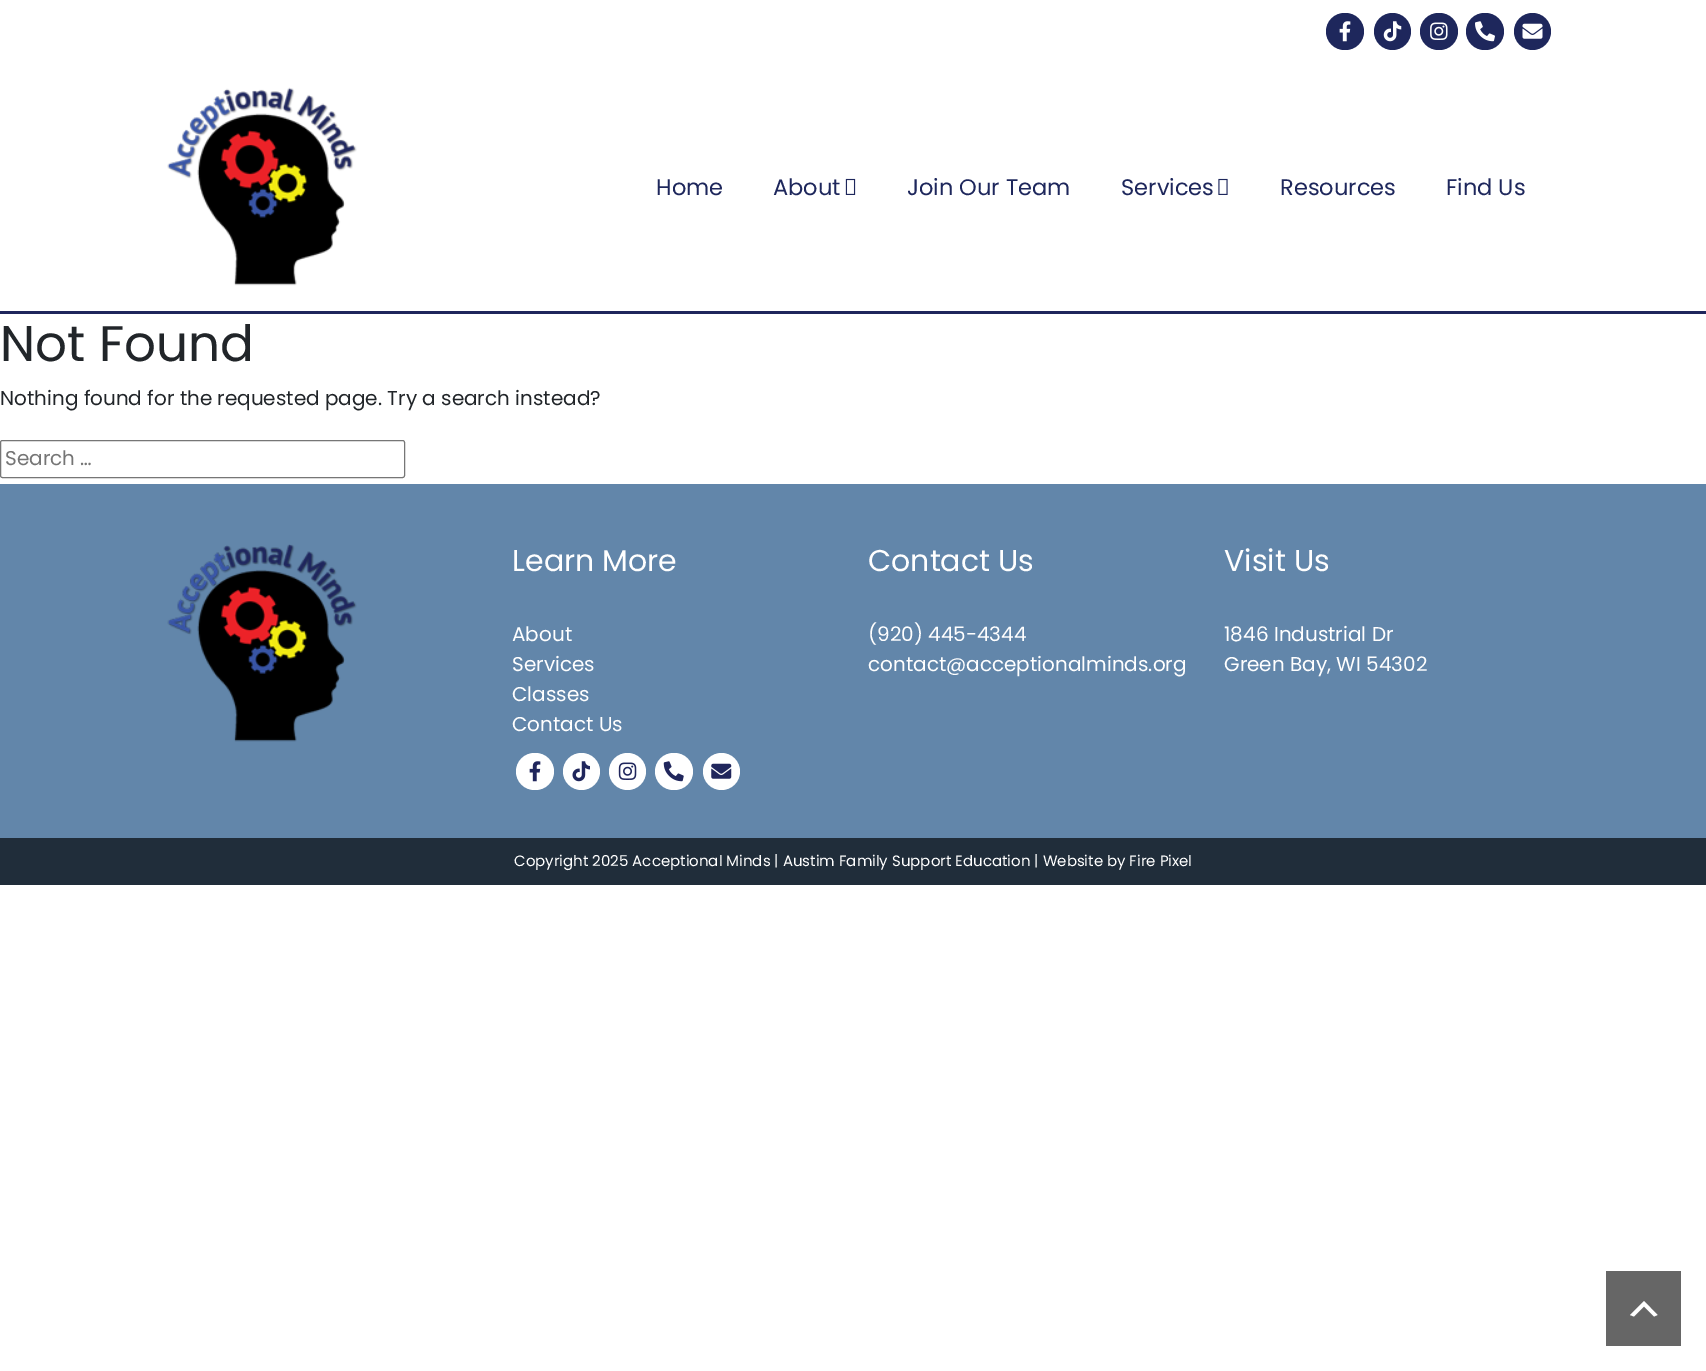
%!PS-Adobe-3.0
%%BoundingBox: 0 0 1706 1371
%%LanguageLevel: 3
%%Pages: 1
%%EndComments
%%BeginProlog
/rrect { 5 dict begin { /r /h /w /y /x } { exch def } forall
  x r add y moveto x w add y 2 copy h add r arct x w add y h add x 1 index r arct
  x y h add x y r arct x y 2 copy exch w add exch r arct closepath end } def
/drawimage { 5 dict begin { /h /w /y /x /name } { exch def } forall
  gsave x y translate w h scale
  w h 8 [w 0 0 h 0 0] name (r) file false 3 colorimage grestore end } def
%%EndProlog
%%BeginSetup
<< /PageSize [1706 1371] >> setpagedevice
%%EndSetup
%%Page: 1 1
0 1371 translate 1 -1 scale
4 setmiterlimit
1 setgray
0 0 1706 1371 rectfill
0.118 0.153 0.361 setrgbcolor
1326 13 38 37 18.5 rrect fill
(images/1.raw) 1339 21 12 21 drawimage
newpath 1392.5 31.5 18.5 0 360 arc closepath fill
(images/2.raw) 1383 21 19 21 drawimage
1420 13 38 37 18.5 rrect fill
(images/3.raw) 1430 22 18 18 drawimage
1466 13 38 37 18.5 rrect fill
(images/4.raw) 1475 21 20 21 drawimage
newpath 1532.5 31.5 18.5 0 360 arc closepath fill
(images/5.raw) 1522 23 21 16 drawimage
0.122 0.149 0.361 setrgbcolor
0 311 1706 3 rectfill
(images/6.raw) 167 87 190 199 drawimage
(images/7.raw) 845 178 11 17 drawimage
(images/8.raw) 1218 178 10 17 drawimage
0.463 setgray
0.5 440.5 404 37 2 rrect stroke
0.384 0.525 0.667 setrgbcolor
0 484 1706 354 rectfill
(images/9.raw) 167 544 190 198 drawimage
1 setgray
516 753 38 37 18.5 rrect fill
(images/10.raw) 529 761 12 21 drawimage
newpath 581.5 771.5 18.5 0 360 arc closepath fill
(images/11.raw) 572 761 18 21 drawimage
newpath 627.5 771.5 18.5 0 360 arc closepath fill
(images/12.raw) 618 762 19 18 drawimage
655 753 38 37 18.5 rrect fill
(images/13.raw) 663 761 21 21 drawimage
newpath 721.5 771.5 18.5 0 360 arc closepath fill
(images/14.raw) 711 763 21 16 drawimage
0.125 0.176 0.227 setrgbcolor
0 838 1706 47 rectfill
0.4 setgray
1606 1271 75 75 rectfill
1 setgray
newpath 1654 1316.5 moveto 1644 1306.5 lineto 1634 1316.5 lineto 1630 1315 lineto 1644 1301 lineto 1657.5 1315 lineto closepath fill
/Poppins-Regular [22.5 0 0 -22.5 0 0] selectfont
0.118 0.153 0.361 setrgbcolor
656 195 moveto (Home) show
773 195 moveto (About) show
907 195 moveto (Join Our Team) show
1121 195 moveto (Services) show
1280 195 moveto (Resources) show
1446 195 moveto (Find Us) show
/Poppins-Regular [50 0 0 -50 0 0] selectfont
0.129 0.145 0.161 setrgbcolor
0 361 moveto (Not Found) show
/Poppins-Regular [20 0 0 -20 0 0] selectfont
0 405 moveto (Nothing found for the requested page. Try a search instead?) show
0.459 setgray
5 465 moveto (Search …) show
/Poppins-Regular [30 0 0 -30 0 0] selectfont
1 setgray
512 571 moveto (Learn More) show
/Poppins-Regular [20 0 0 -20 0 0] selectfont
512 641 moveto (About) show
512 671 moveto (Services) show
512 701 moveto (Classes) show
512 731 moveto (Contact Us) show
/Poppins-Regular [30 0 0 -30 0 0] selectfont
868 571 moveto (Contact Us) show
/Poppins-Regular [20 0 0 -20 0 0] selectfont
868 641 moveto (\(920\) 445-4344) show
868 671 moveto (contact@acceptionalminds.org) show
/Poppins-Regular [30 0 0 -30 0 0] selectfont
1224 571 moveto (Visit Us) show
/Poppins-Regular [20 0 0 -20 0 0] selectfont
1224 641 moveto (1846 Industrial Dr) show
1224 671 moveto (Green Bay, WI 54302) show
/Poppins-Regular [15 0 0 -15 0 0] selectfont
514 866 moveto (Copyright 2025 Acceptional Minds | Austim Family Support Education | Website by Fire Pixel) show
showpage
%%EOF
